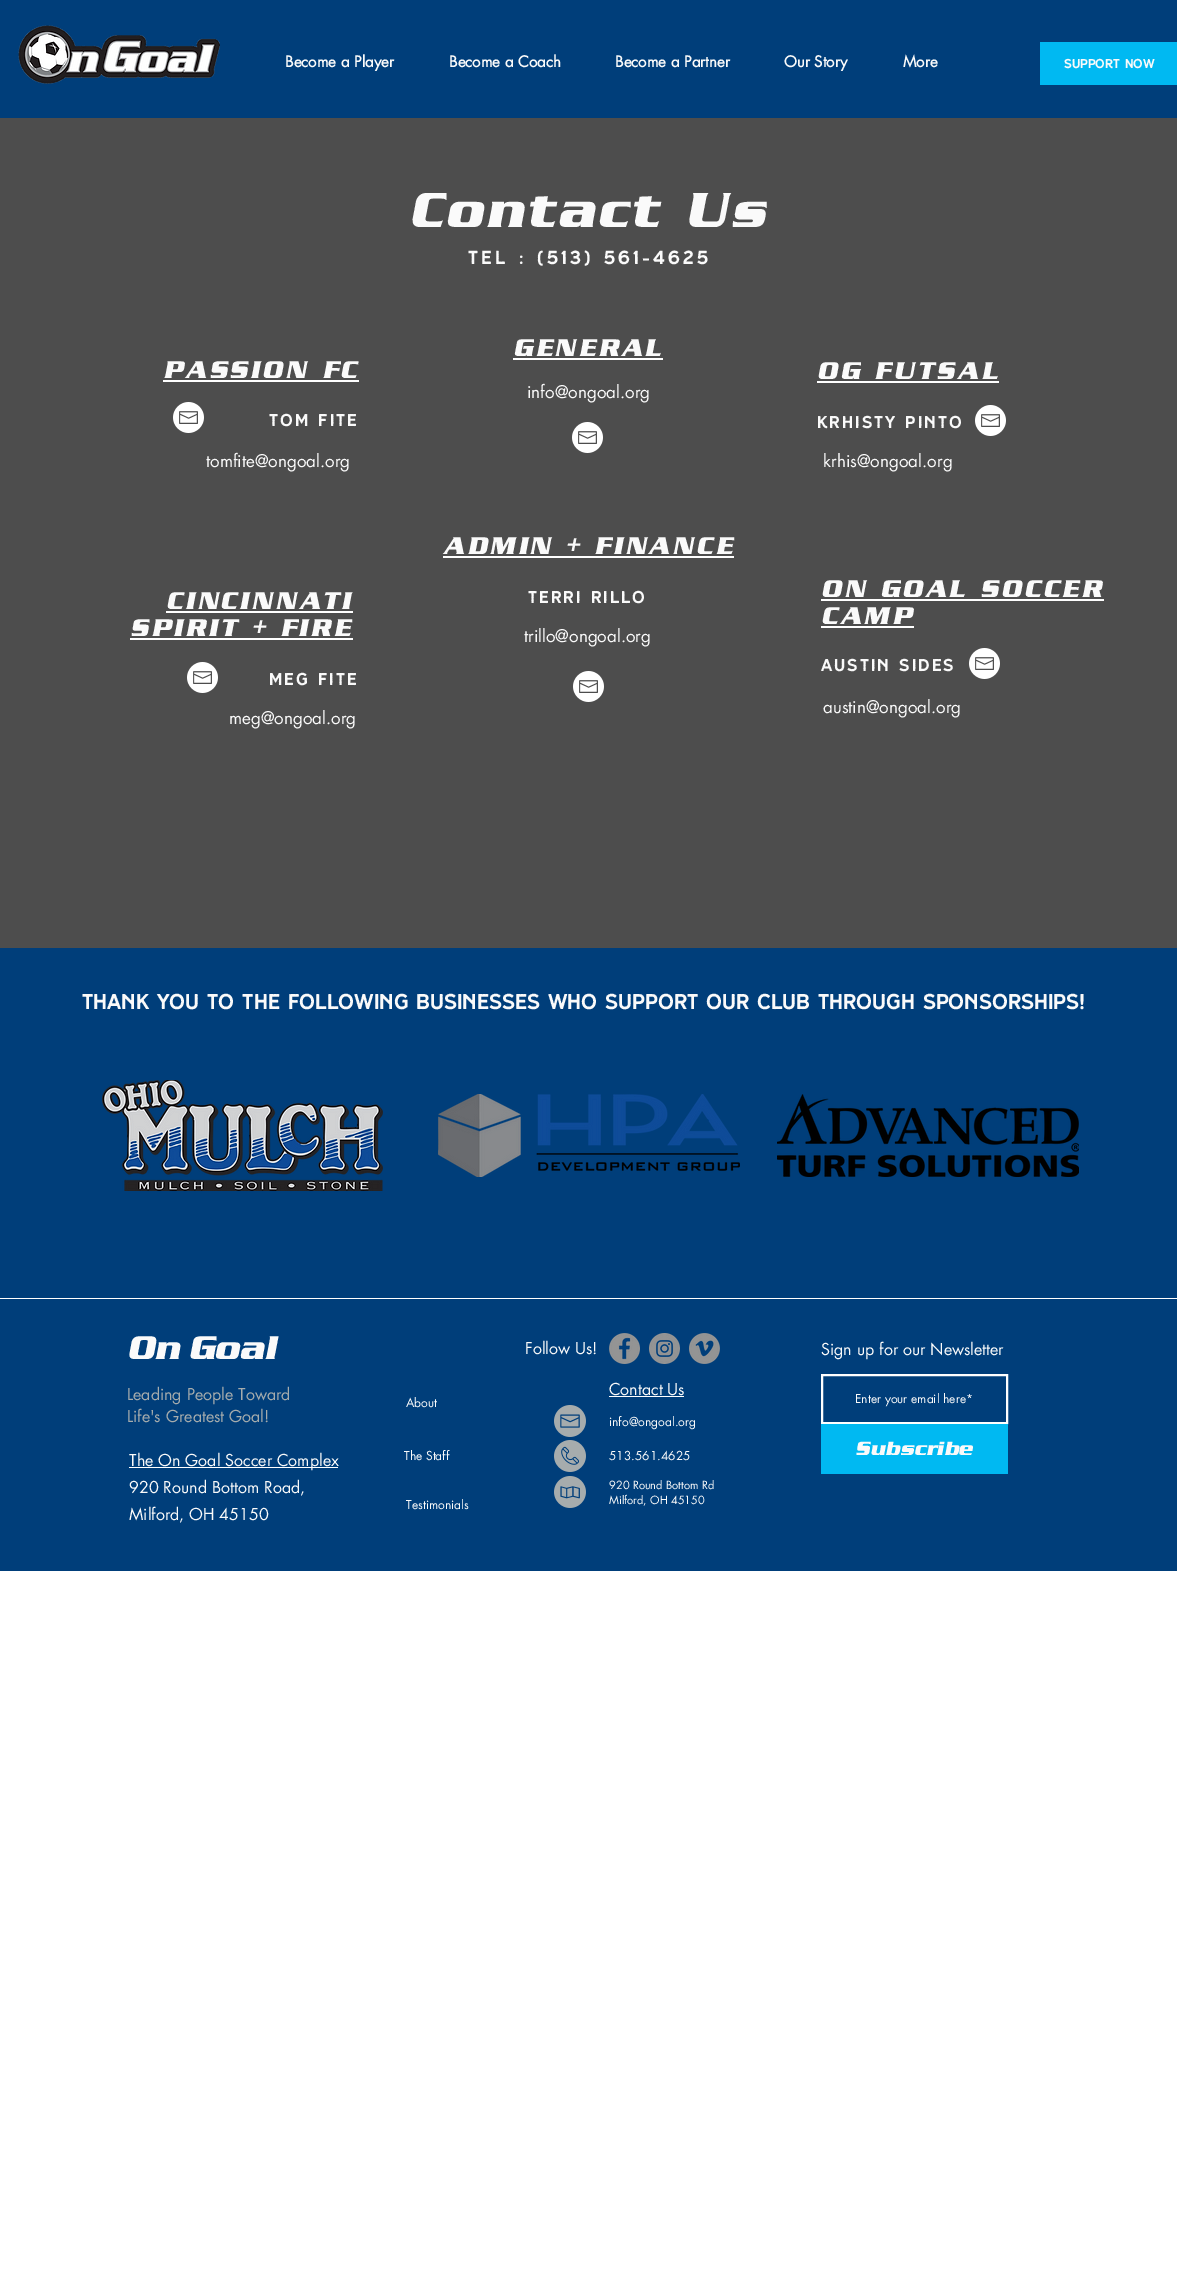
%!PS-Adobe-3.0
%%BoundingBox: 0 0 1177 2295
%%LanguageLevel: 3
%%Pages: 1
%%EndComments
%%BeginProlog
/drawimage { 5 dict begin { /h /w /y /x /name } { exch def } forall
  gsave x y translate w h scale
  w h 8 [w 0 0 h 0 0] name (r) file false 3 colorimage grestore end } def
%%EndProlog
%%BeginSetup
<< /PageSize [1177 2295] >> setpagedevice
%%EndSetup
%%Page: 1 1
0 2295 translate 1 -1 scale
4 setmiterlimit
1 setgray
0 0 1177 2295 rectfill
0 0.243 0.478 setrgbcolor
0 0 1177 118 rectfill
(images/1.raw) 18 25 202 59 drawimage
0 0.725 0.949 setrgbcolor
1040 42 137 43 rectfill
0.302 setgray
0 118 1177 830 rectfill
1 setgray
163 380 196 2 rectfill
(images/2.raw) 173 402 31 31 drawimage
166 611 187 2 rectfill
130 638 223 2 rectfill
(images/2.raw) 187 662 31 31 drawimage
513 358 150 2 rectfill
(images/2.raw) 572 422 31 31 drawimage
443 556 291 2 rectfill
(images/2.raw) 573 671 31 31 drawimage
817 381 182 2 rectfill
(images/2.raw) 975 405 31 31 drawimage
821 599 283 2 rectfill
821 626 93 2 rectfill
(images/2.raw) 969 648 31 31 drawimage
0 0.243 0.478 setrgbcolor
0 948 1177 623 rectfill
(images/3.raw) 102 1080 281 111 drawimage
(images/4.raw) 438 1094 302 83 drawimage
(images/5.raw) 777 1094 302 83 drawimage
1 setgray
0 1298 1177 1 rectfill
(images/6.raw) 609 1333 31 31 drawimage
(images/7.raw) 649 1333 31 31 drawimage
(images/8.raw) 689 1333 31 31 drawimage
2 setlinewidth
822 1375 185 48 rectstroke
0 0.725 0.949 setrgbcolor
821 1424 187 50 rectfill
1 setgray
609 1396 75 1 rectfill
(images/9.raw) 554 1405 32 32 drawimage
129 1467 209 1 rectfill
(images/10.raw) 554 1440 32 32 drawimage
(images/11.raw) 554 1476 32 32 drawimage
/futura-Bold [15 0 0 -15 0 0] selectfont
0.98 setgray
285 67 moveto (Become a Player) show
449 67 moveto (Become a Coach) show
615 67 moveto (Become a Partner) show
784 67 moveto (Our Story) show
903 67 moveto (More) show
/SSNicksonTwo-Regular [15 0 0 -15 0 0] selectfont
1064 68 moveto (SUPPORT NOW) show
/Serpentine-BoldItalic [25 0 0 -25 0 0] selectfont
163 378 moveto 2.5 0 (PASSION FC) ashow
/SSNicksonTwo-Regular [20 0 0 -20 0 0] selectfont
269 426 moveto 2 0 (Tom fite) ashow
/futura-Regular [17 0 0 -17 0 0] selectfont
206 467 moveto (tomfite@ongoal.org) show
/Serpentine-BoldItalic [25 0 0 -25 0 0] selectfont
166 609 moveto 2.5 0 (CINCINNATI) ashow
130 636 moveto 2.5 0 (SPIRIT + FIRE) ashow
/SSNicksonTwo-Regular [20 0 0 -20 0 0] selectfont
269 685 moveto 2 0 (Meg Fite) ashow
/futura-Regular [17 0 0 -17 0 0] selectfont
229 724 moveto (meg@ongoal.org) show
/Serpentine-BoldItalic [51 0 0 -51 0 0] selectfont
409 227 moveto 2.5 0 (Contact Us) ashow
/SSNicksonTwo-Regular [22 0 0 -22 0 0] selectfont
468 264 moveto 3.25 0 (TEL : \(513\) 561-4625) ashow
/Serpentine-BoldItalic [25 0 0 -25 0 0] selectfont
513 356 moveto 2.5 0 (GENERAL) ashow
/futura-Regular [17 0 0 -17 0 0] selectfont
527 398 moveto (info@ongoal.org) show
/Serpentine-BoldItalic [25 0 0 -25 0 0] selectfont
443 554 moveto 2.5 0 (ADMIN + FINANCE) ashow
/SSNicksonTwo-Regular [20 0 0 -20 0 0] selectfont
528 603 moveto 2 0 (terri rillo) ashow
/futura-Regular [17 0 0 -17 0 0] selectfont
524 642 moveto (trillo@ongoal.org) show
/Serpentine-BoldItalic [25 0 0 -25 0 0] selectfont
817 379 moveto 2.5 0 (OG FUTSAL) ashow
/SSNicksonTwo-Regular [20 0 0 -20 0 0] selectfont
817 428 moveto 2 0 (Krhisty Pinto) ashow
/futura-Regular [17 0 0 -17 0 0] selectfont
823 467 moveto (krhis@ongoal.org) show
/Serpentine-BoldItalic [25 0 0 -25 0 0] selectfont
821 597 moveto 2.5 0 (ON GOAL SOCCER) ashow
821 624 moveto 2.5 0 (CAMP) ashow
/SSNicksonTwo-Regular [20 0 0 -20 0 0] selectfont
821 671 moveto 2 0 (Austin sides) ashow
/futura-Regular [17 0 0 -17 0 0] selectfont
823 713 moveto (austin@ongoal.org) show
/SSNicksonTwo-Regular [25 0 0 -25 0 0] selectfont
82 1009 moveto (Thank you to the following businesses who support our club through sponsorships!) show
/Serpentine-BoldItalic [34 0 0 -34 0 0] selectfont
127 1359 moveto (On) show
188 1359 moveto (Goal) show
/futura-Regular [16 0 0 -16 0 0] selectfont
525 1354 moveto (Follow Us!) show
821 1355 moveto (Sign up for our Newsletter) show
/futura-Regular [12 0 0 -12 0 0] selectfont
855 1403 moveto (Enter your email here*) show
/Serpentine-BoldItalic [20 0 0 -20 0 0] selectfont
855 1455 moveto (Subscribe) show
/futura-Regular [16 0 0 -16 0 0] selectfont
0.651 0.675 0.678 setrgbcolor
127 1400 moveto (Leading People Toward) show
127 1422 moveto (Life's Greatest Goal!) show
/futura-Regular [12 0 0 -12 0 0] selectfont
0.98 setgray
406 1407 moveto (About) show
/futura-Regular [16 0 0 -16 0 0] selectfont
609 1395 moveto (Contact Us) show
/futura-Regular [12 0 0 -12 0 0] selectfont
609 1426 moveto (info@ongoal.org) show
/futura-Regular [16 0 0 -16 0 0] selectfont
129 1466 moveto (The On Goal Soccer Complex) show
129 1493 moveto (920 Round Bottom Road,) show
129 1520 moveto (Milford, OH 45150) show
/futura-Regular [12 0 0 -12 0 0] selectfont
404 1460 moveto (The Staff) show
609 1460 moveto (513.561.4625) show
406 1509 moveto (Testimonials) show
/futura-Regular [11 0 0 -11 0 0] selectfont
609 1489 moveto (920 Round Bottom Rd) show
609 1504 moveto (Milford, OH 45150) show
showpage
%%EOF
